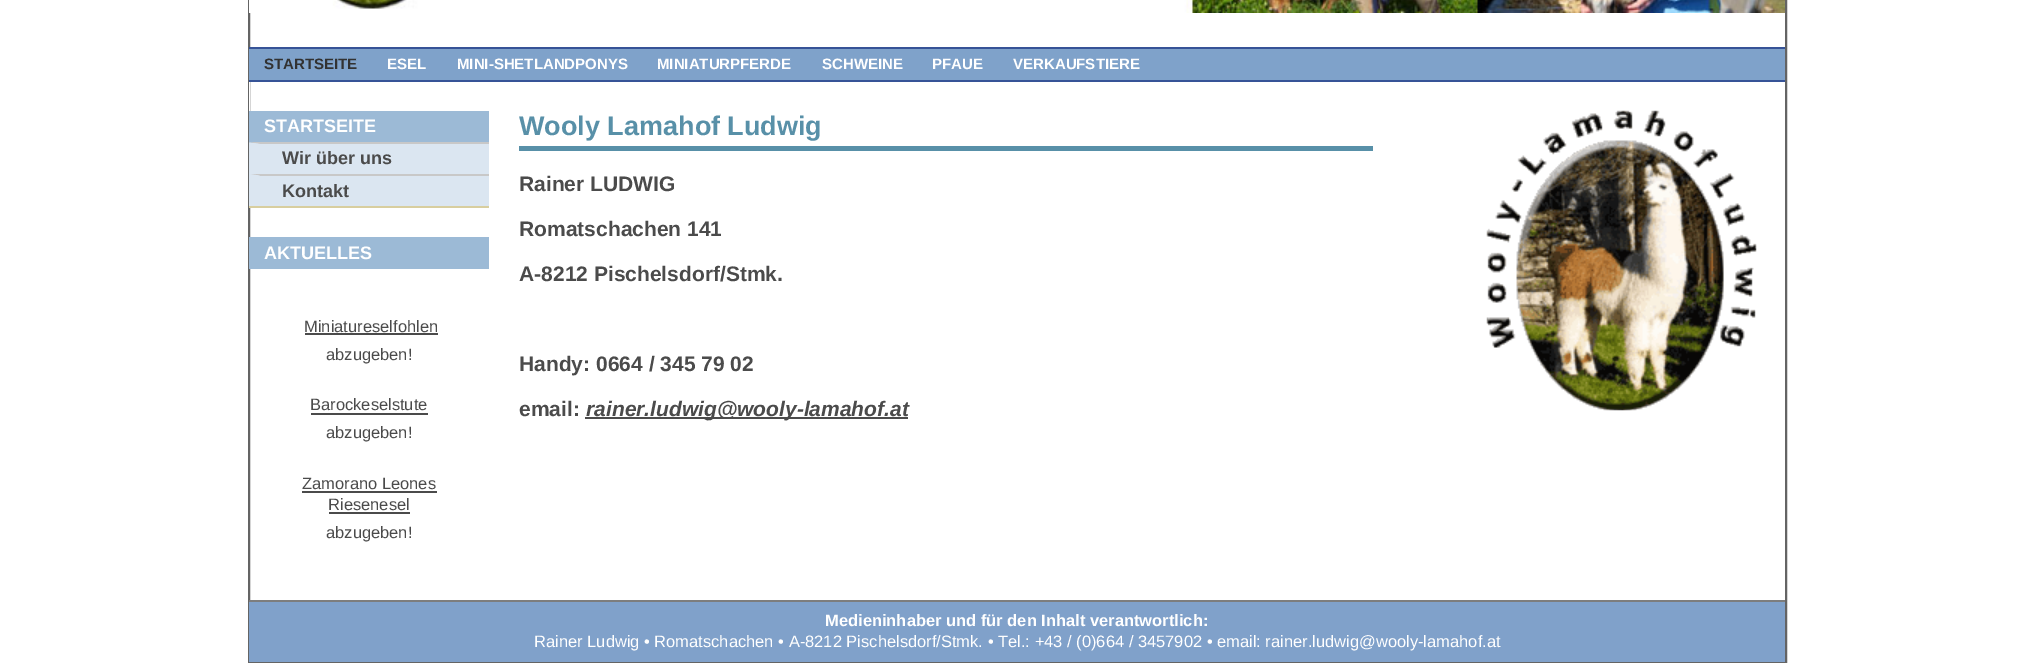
%!PS-Adobe-3.0
%%BoundingBox: 0 0 2034 663
%%LanguageLevel: 3
%%Pages: 1
%%EndComments
%%BeginProlog
/drawimage { 5 dict begin { /h /w /y /x /name } { exch def } forall
  gsave x y translate w h scale
  w h 8 [w 0 0 h 0 0] name (r) file false 3 colorimage grestore end } def
%%EndProlog
%%BeginSetup
<< /PageSize [2034 663] >> setpagedevice
%%EndSetup
%%Page: 1 1
0 663 translate 1 -1 scale
4 setmiterlimit
1 setgray
0 0 2034 663 rectfill
0.392 setgray
2 setlinewidth
249 -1 1537 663 rectstroke
(images/1.raw) 249 0 1536 13 drawimage
0.498 0.635 0.792 setrgbcolor
249 49 1536 31 rectfill
0.212 0.325 0.592 setrgbcolor
249 47 1536 2 rectfill
249 80 1536 2 rectfill
1 setgray
249 82 1 29 rectfill
0.612 0.729 0.839 setrgbcolor
249 111 240 32 rectfill
0.859 0.902 0.945 setrgbcolor
249 143 240 63 rectfill
0.847 0.808 0.624 setrgbcolor
249 206 240 2 rectfill
0.784 setgray
newpath 249 142 moveto 489 142 lineto 489 144 lineto 260 144 lineto closepath fill
0.859 0.902 0.945 setrgbcolor
newpath 249 174 moveto 249 142.5 lineto 259.5 144 lineto 259.5 174 lineto closepath fill
0.784 setgray
newpath 249 174 moveto 489 174 lineto 489 176 lineto 260 176 lineto closepath fill
0.859 0.902 0.945 setrgbcolor
newpath 249 205.5 moveto 249 174 lineto 259.5 175.5 lineto 259.5 205.5 lineto closepath fill
0.612 0.729 0.839 setrgbcolor
249 237 240 32 rectfill
0.294 setgray
305 333 133 2 rectfill
311 413 117 2 rectfill
302 491 135 2 rectfill
329 512 81 2 rectfill
0.345 0.565 0.659 setrgbcolor
519 146 854 5 rectfill
0.294 setgray
585 417 323 2 rectfill
(images/2.raw) 1486 110 271 301 drawimage
0.502 0.631 0.792 setrgbcolor
249 602 1536 60 rectfill
0.49 setgray
249 600 1536 2 rectfill
/LiberationSans-Bold [15 0 0 -15 0 0] selectfont
0.196 setgray
264 69 moveto (STARTSEITE) show
1 setgray
387 69 moveto (ESEL) show
457 69 moveto (MINI-SHETLANDPONYS) show
657 69 moveto (MINIATURPFERDE) show
822 69 moveto (SCHWEINE) show
932 69 moveto (PFAUE) show
1013 69 moveto (VERKAUFSTIERE) show
/LiberationSans-Bold [18 0 0 -18 0 0] selectfont
264 132 moveto (STARTSEITE) show
0.294 setgray
282 164 moveto (Wir über uns) show
282 197 moveto (Kontakt) show
1 setgray
264 259 moveto (AKTUELLES) show
/LiberationSans-Regular [16.5 0 0 -16.5 0 0] selectfont
0.294 setgray
304 332 moveto (Miniatureselfohlen) show
326 360 moveto (abzugeben!) show
310 410 moveto (Barockeselstute) show
326 438 moveto (abzugeben!) show
302 489 moveto (Zamorano Leones) show
328 510 moveto (Riesenesel) show
326 538 moveto (abzugeben!) show
/LiberationSans-Bold [27 0 0 -27 0 0] selectfont
0.345 0.565 0.659 setrgbcolor
519 135 moveto (Wooly Lamahof Ludwig) show
/LiberationSans-Bold [21 0 0 -21 0 0] selectfont
0.294 setgray
519 191 moveto (Rainer LUDWIG) show
519 236 moveto (Romatschachen 141) show
519 281 moveto (A-8212 Pischelsdorf/Stmk.) show
519 371 moveto (Handy: 0664 / 345 79 02) show
519 416 moveto (email:) show
/LiberationSans-BoldItalic [21 0 0 -21 0 0] selectfont
586 416 moveto (rainer.ludwig@wooly-lamahof.at) show
/LiberationSans-Bold [16.5 0 0 -16.5 0 0] selectfont
1 setgray
825 626 moveto (Medieninhaber und für den Inhalt verantwortlich:) show
/LiberationSans-Regular [16.5 0 0 -16.5 0 0] selectfont
534 647 moveto (Rainer Ludwig • Romatschachen • A-8212 Pischelsdorf/Stmk. • Tel.: +43 / \(0\)664 / 3457902 • email: rainer.ludwig@wooly-lamahof.at) show
showpage
%%EOF
